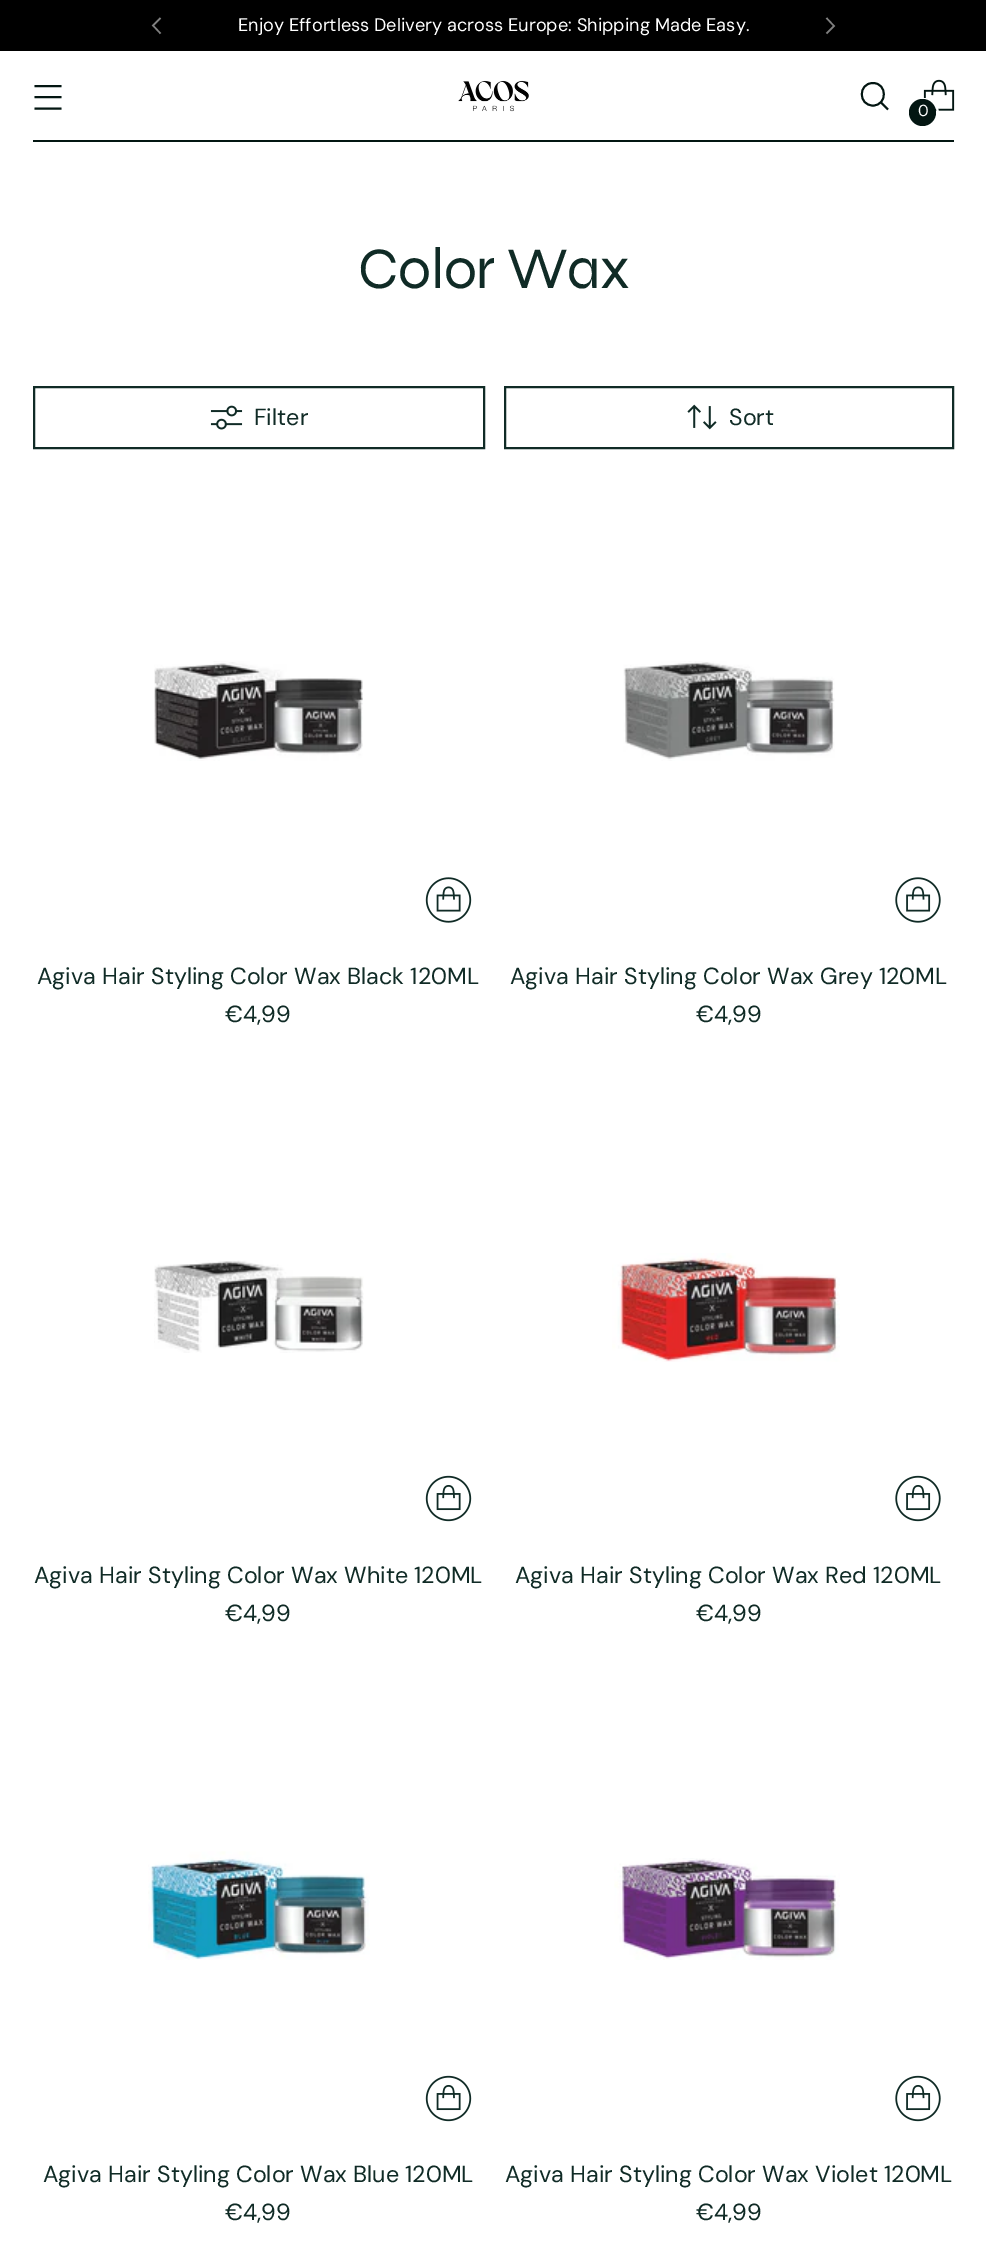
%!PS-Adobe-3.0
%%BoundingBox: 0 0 986 2248
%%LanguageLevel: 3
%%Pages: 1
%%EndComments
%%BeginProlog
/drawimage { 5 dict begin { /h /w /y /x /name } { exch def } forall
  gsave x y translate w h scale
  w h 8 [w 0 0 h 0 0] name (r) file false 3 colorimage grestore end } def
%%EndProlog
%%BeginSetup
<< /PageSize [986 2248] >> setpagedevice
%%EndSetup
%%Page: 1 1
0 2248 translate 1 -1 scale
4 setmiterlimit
1 setgray
0 0 986 2248 rectfill
0 setgray
0 0 986 51 rectfill
0.502 setgray
1.5 setlinewidth
newpath 160.5 18 moveto 153 25.5 lineto 160.5 33.5 lineto stroke
newpath 826.5 33.5 moveto 834 26 lineto 826.5 18 lineto stroke
0.012 0.086 0.071 setrgbcolor
33 140 921 2 rectfill
1.9 setlinewidth
newpath 34.5 97 moveto 61.5 97 lineto 34.5 86 moveto 61.5 86 lineto 34.5 108.5 moveto 61.5 108.5 lineto stroke
(images/1.raw) 458 80 71 32 drawimage
1 setlinecap
newpath 873 105.5 moveto 887.5 105.5 887.5 83 873 83 curveto 858 83 858 105.5 873 105.5 curveto closepath stroke
0 setlinecap
newpath 881 102.5 moveto 888 109.5 lineto stroke
(images/2.raw) 923 79 32 32 drawimage
1 setgray
2 setlinewidth
newpath 923.5 113.5 14.5 0 360 arc closepath stroke
0.012 0.086 0.071 setrgbcolor
newpath 922.5 112.5 13.5 0 360 arc closepath fill
0.063 0.169 0.149 setrgbcolor
34 387 450 61 rectstroke
(images/3.raw) 210 405 33 25 drawimage
505 387 448 61 rectstroke
(images/4.raw) 687 404 30 26 drawimage
(images/5.raw) 154 661 209 100 drawimage
(images/6.raw) 425 877 47 46 drawimage
(images/7.raw) 623 661 212 100 drawimage
(images/8.raw) 895 877 46 46 drawimage
(images/9.raw) 154 1260 210 93 drawimage
(images/10.raw) 425 1475 47 47 drawimage
(images/11.raw) 612 1253 228 109 drawimage
(images/12.raw) 895 1475 46 47 drawimage
(images/13.raw) 148 1851 222 109 drawimage
(images/10.raw) 425 2075 47 47 drawimage
(images/14.raw) 614 1858 226 102 drawimage
(images/12.raw) 895 2075 46 47 drawimage
/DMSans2-Regular [18.15 0 0 -18.15 0 0] selectfont
1 setgray
238 31 moveto (Enjoy Effortless Delivery across Europe: Shipping Made Easy.) show
/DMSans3-Regular [16 0 0 -16 0 0] selectfont
918 116 moveto (0) show
/Syne-Regular [58.75 0 0 -58.75 0 0] selectfont
0.063 0.169 0.149 setrgbcolor
358 288 moveto -0.5 0 (Color Wax) ashow
/DMSans-Regular [23.3 0 0 -23.3 0 0] selectfont
254 425 moveto (Filter) show
729 425 moveto (Sort) show
37 984 moveto (Agiva Hair Styling Color Wax Black 120ML) show
225 1022 moveto (€4,99) show
510 984 moveto (Agiva Hair Styling Color Wax Grey 120ML) show
696 1022 moveto (€4,99) show
34 1583 moveto (Agiva Hair Styling Color Wax White 120ML) show
225 1621 moveto (€4,99) show
515 1583 moveto (Agiva Hair Styling Color Wax Red 120ML) show
696 1621 moveto (€4,99) show
43 2182 moveto (Agiva Hair Styling Color Wax Blue 120ML) show
225 2220 moveto (€4,99) show
505 2182 moveto (Agiva Hair Styling Color Wax Violet 120ML) show
696 2220 moveto (€4,99) show
showpage
%%EOF
